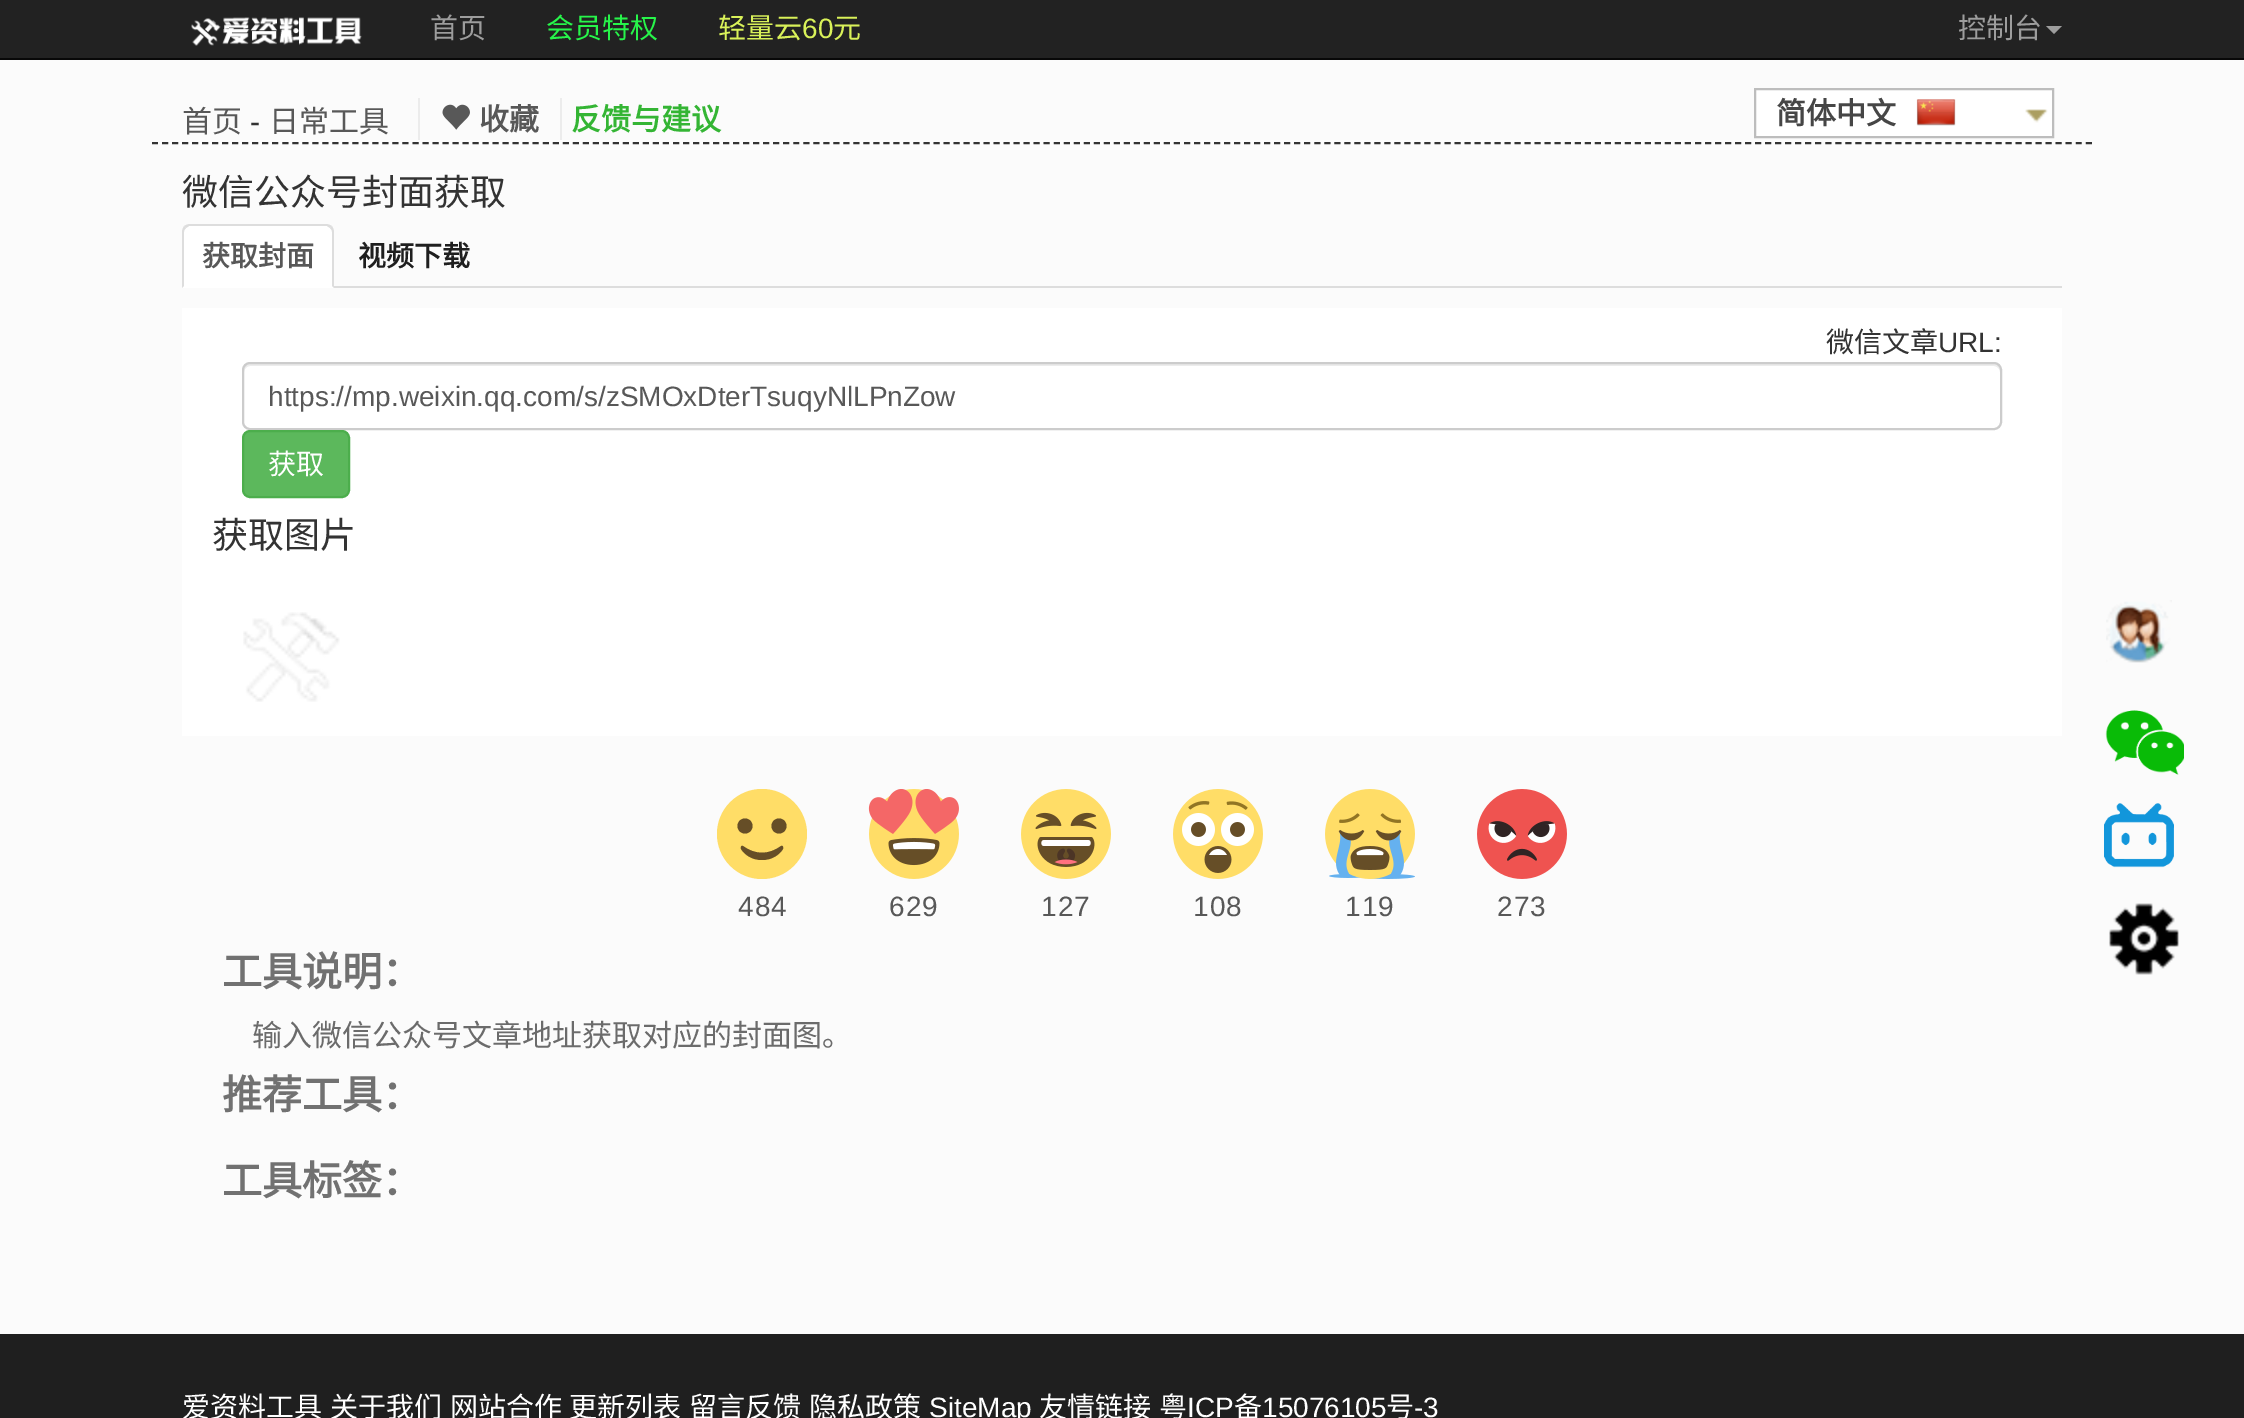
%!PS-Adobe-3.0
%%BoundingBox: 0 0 2244 1418
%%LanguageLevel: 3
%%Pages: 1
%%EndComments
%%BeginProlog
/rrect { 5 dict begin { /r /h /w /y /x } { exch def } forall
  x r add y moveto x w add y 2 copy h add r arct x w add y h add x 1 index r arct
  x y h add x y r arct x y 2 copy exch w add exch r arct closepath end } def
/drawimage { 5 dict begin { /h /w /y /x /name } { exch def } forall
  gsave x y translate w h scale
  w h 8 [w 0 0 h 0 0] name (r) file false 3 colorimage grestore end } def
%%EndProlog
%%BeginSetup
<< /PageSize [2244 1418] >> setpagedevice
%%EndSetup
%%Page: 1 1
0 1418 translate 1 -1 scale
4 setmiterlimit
0.984 setgray
0 0 2244 1418 rectfill
0.133 setgray
0 0 2244 58 rectfill
0.031 setgray
0 58 2244 2 rectfill
(images/1.raw) 191 17 171 29 drawimage
0.616 setgray
newpath 2046 26 moveto 2062 26 lineto 2054 34 lineto closepath fill
0.2 setgray
2 setlinewidth
[6 4.02] 0 setdash
newpath 152 143 moveto 2092 143 lineto stroke
0.925 setgray
418 98 2 42 rectfill
(images/2.raw) 442 104 28 26 drawimage
560 98 2 42 rectfill
1 setgray
1756 90 296 46 rectfill
(images/3.raw) 2025 109 23 14 drawimage
0.741 setgray
[] 0 setdash
1755 89 298 48 rectstroke
(images/4.raw) 1916 99 40 27 drawimage
0.867 setgray
334 286 1728 2 rectfill
1 setgray
newpath 190 224 moveto 326 224 lineto 330.5 224 334 227.5 334 232 curveto 334 288 lineto 182 288 lineto 182 232 lineto 182 227.5 185.5 224 190 224 curveto closepath fill
0.867 setgray
newpath 190 224 moveto 188 224 186 225 184 226 curveto 186 228 lineto 189 226 lineto 327 226 lineto 330 228 lineto 332 226 lineto 330 225 328 224 326 224 curveto closepath fill
newpath 334 288 moveto 334 232 lineto 334 230 333 228 332 226 curveto 330 228 lineto 331 229 332 230 332 232 curveto 332 286 lineto closepath fill
newpath 182 288 moveto 184 286 lineto 184 232 lineto 184 230 185 229 186 228 curveto 184 226 lineto 183 228 182 230 182 232 curveto closepath fill
1 setgray
182 308 1880 428 rectfill
0.925 setgray
newpath 250 366 moveto 1994 366 lineto 1997 366 2000 369 2000 372 curveto 2000 368 1999 364 1994 364 curveto 250 364 lineto 245 364 244 368 244 372 curveto 244 369 247 366 250 366 curveto closepath fill
0.8 setgray
243 363 1758 66 7 rrect stroke
0.361 0.722 0.361 setrgbcolor
243 431 106 66 7 rrect gsave fill grestore
0.298 0.682 0.298 setrgbcolor
stroke
(images/5.raw) 243 612 97 90 drawimage
(images/6.raw) 2106 600 66 63 drawimage
(images/7.raw) 2105 710 79 65 drawimage
(images/8.raw) 2104 803 70 65 drawimage
(images/9.raw) 2109 903 70 72 drawimage
1 0.867 0.404 setrgbcolor
newpath 762 834 45 0 360 arc closepath fill
0.4 0.306 0.153 setrgbcolor
newpath 745 826 7.5 0 360 arc closepath fill
newpath 779 826 7.5 0 360 arc closepath fill
newpath 781 846 moveto 769 855 755 855 743 846 curveto 742 845 740 847 741 849 curveto 745 855 752 860 762 860 curveto 772 860 779 855 783 849 curveto 784 847 782 845 781 846 curveto fill
(images/10.raw) 868 789 91 90 drawimage
(images/11.raw) 1021 789 90 90 drawimage
(images/12.raw) 1173 789 90 90 drawimage
(images/13.raw) 1325 789 90 90 drawimage
(images/14.raw) 1477 789 90 90 drawimage
0.122 setgray
0 1334 2244 84 rectfill
/NotoSansCJKSC-Regular [28 0 0 -28 0 0] selectfont
0.616 setgray
430 38 moveto (首页) show
0.153 0.961 0.29 setrgbcolor
546 38 moveto (会员特权) show
0.851 0.945 0.349 setrgbcolor
718 38 moveto (轻量云) show
/LiberationSans-Regular [28 0 0 -28 0 0] selectfont
802 38 moveto (60) show
/NotoSansCJKSC-Regular [28 0 0 -28 0 0] selectfont
833 38 moveto (元) show
0.616 setgray
1958 38 moveto (控制台) show
/NotoSansCJKSC-Regular [30 0 0 -30 0 0] selectfont
0.345 setgray
182 132 moveto (首页) show
/LiberationSans-Regular [30 0 0 -30 0 0] selectfont
0.2 setgray
250 132 moveto (-) show
/NotoSansCJKSC-Regular [30 0 0 -30 0 0] selectfont
0.345 setgray
269 132 moveto (日常工具) show
/NotoSansCJKSC-Bold [30 0 0 -30 0 0] selectfont
479 130 moveto (收藏) show
0.204 0.71 0.204 setrgbcolor
571 130 moveto (反馈与建议) show
0.275 setgray
1776 124 moveto (简体中文) show
/NotoSansCJKSC-Regular [36 0 0 -36 0 0] selectfont
0.2 setgray
182 205 moveto (微信公众号封面获取) show
/NotoSansCJKSC-Bold [28 0 0 -28 0 0] selectfont
0.345 setgray
202 266 moveto (获取封面) show
0.122 setgray
358 266 moveto (视频下载) show
/NotoSansCJKSC-Regular [28 0 0 -28 0 0] selectfont
0.2 setgray
1826 352 moveto (微信文章) show
/LiberationSans-Regular [28 0 0 -28 0 0] selectfont
1938 352 moveto (URL:) show
0.345 setgray
268 406 moveto (https://mp.weixin.qq.com/s/zSMOxDterTsuqyNlLPnZow) show
/NotoSansCJKSC-Regular [28 0 0 -28 0 0] selectfont
1 setgray
268 474 moveto (获取) show
/NotoSansCJKSC-Regular [36 0 0 -36 0 0] selectfont
0.2 setgray
212 548 moveto (获取图片) show
/LiberationSans-Regular [28 0 0 -28 0 0] selectfont
0.345 setgray
738 916 moveto 1 0 (484) ashow
889 916 moveto 1 0 (629) ashow
1041 916 moveto 1 0 (127) ashow
1193 916 moveto 1 0 (108) ashow
1345 916 moveto 1 0 (119) ashow
1497 916 moveto 1 0 (273) ashow
/NotoSansCJKSC-Bold [40 0 0 -40 0 0] selectfont
0.443 setgray
222 986 moveto (工具说明：) show
/NotoSansCJKSC-Regular [30 0 0 -30 0 0] selectfont
0.42 setgray
252 1046 moveto (输入微信公众号文章地址获取对应的封面图。) show
/NotoSansCJKSC-Bold [40 0 0 -40 0 0] selectfont
0.443 setgray
222 1109 moveto (推荐工具：) show
222 1195 moveto (工具标签：) show
/NotoSansCJKSC-Regular [28 0 0 -28 0 0] selectfont
1 setgray
182 1417 moveto (爱资料工具) show
330 1417 moveto (关于我们) show
450 1417 moveto (网站合作) show
569 1417 moveto (更新列表) show
689 1417 moveto (留言反馈) show
809 1417 moveto (隐私政策) show
/LiberationSans-Regular [28 0 0 -28 0 0] selectfont
929 1417 moveto (SiteMap) show
/NotoSansCJKSC-Regular [28 0 0 -28 0 0] selectfont
1039 1417 moveto (友情链接) show
1159 1417 moveto (粤) show
/LiberationSans-Regular [28 0 0 -28 0 0] selectfont
1187 1417 moveto (ICP) show
/NotoSansCJKSC-Regular [28 0 0 -28 0 0] selectfont
1234 1417 moveto (备) show
/LiberationSans-Regular [28 0 0 -28 0 0] selectfont
1262 1417 moveto (15076105) show
/NotoSansCJKSC-Regular [28 0 0 -28 0 0] selectfont
1386 1417 moveto (号) show
/LiberationSans-Regular [28 0 0 -28 0 0] selectfont
1414 1417 moveto (-3) show
showpage
%%EOF
